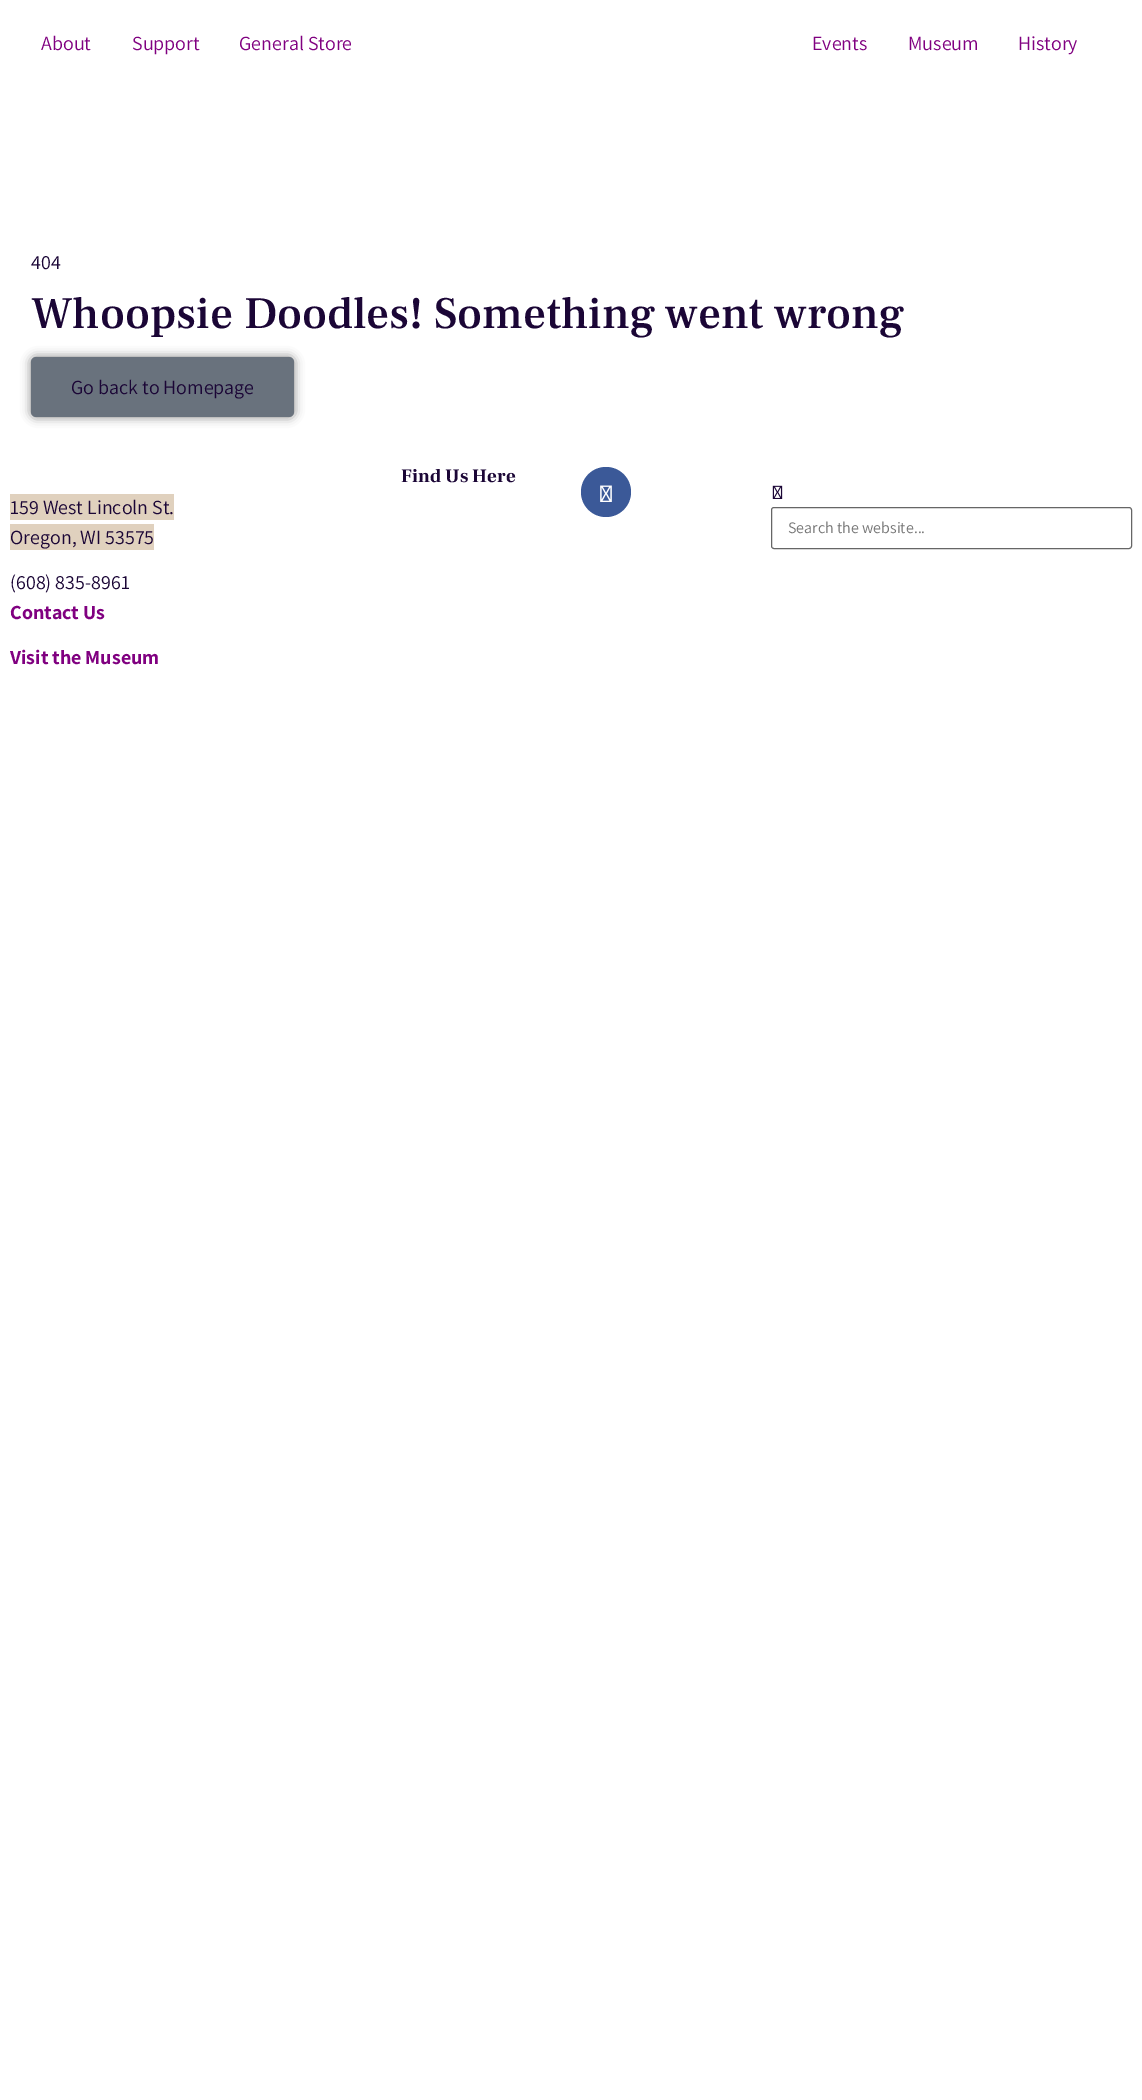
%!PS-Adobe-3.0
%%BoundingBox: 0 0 1142 2100
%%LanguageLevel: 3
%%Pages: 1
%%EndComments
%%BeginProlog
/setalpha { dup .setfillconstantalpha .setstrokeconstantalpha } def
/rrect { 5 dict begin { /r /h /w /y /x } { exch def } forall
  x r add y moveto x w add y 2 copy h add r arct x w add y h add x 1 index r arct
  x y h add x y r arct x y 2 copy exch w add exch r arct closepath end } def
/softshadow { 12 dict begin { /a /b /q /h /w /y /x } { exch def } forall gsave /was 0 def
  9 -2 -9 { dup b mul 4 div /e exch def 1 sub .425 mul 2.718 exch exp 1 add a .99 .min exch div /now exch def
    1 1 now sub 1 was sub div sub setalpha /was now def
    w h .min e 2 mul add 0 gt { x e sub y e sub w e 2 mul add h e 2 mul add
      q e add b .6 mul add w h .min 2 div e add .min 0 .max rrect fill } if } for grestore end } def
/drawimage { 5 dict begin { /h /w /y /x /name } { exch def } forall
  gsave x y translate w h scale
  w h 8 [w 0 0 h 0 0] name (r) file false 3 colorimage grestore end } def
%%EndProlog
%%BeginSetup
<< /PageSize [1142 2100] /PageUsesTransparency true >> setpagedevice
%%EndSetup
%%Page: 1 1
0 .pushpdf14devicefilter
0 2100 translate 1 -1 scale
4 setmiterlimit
1 setgray
0 0 1142 2100 rectfill
0 setgray
31 357 263 60 5 5 0.5 softshadow
0.412 0.447 0.49 setrgbcolor
31 357 263 60 5 rrect fill
0.231 0.349 0.596 setrgbcolor
newpath 606 492 25 0 360 arc closepath fill
(images/1.raw) 600 485 12 17 drawimage
0.878 0.82 0.745 setrgbcolor
10 494 164 26 rectfill
10 524 144 26 rectfill
(images/2.raw) 772 485 11 14 drawimage
0.4 setgray
771.5 507.5 360 41 2.5 rrect stroke
/Assistant-Regular [20 0 0 -20 0 0] selectfont
0.502 0 0.502 setrgbcolor
41 50 moveto (About) show
132 50 moveto (Support) show
239 50 moveto (General Store) show
812 50 moveto (Events) show
908 50 moveto (Museum) show
1018 50 moveto (History) show
0.106 0.024 0.212 setrgbcolor
31 269 moveto (404) show
/FrankRuhlLibre-Medium [45 0 0 -45 0 0] selectfont
31 328 moveto (Whoopsie Doodles! Something went wrong) show
/Assistant-Regular [20 0 0 -20 0 0] selectfont
71 394 moveto (Go back to Homepage) show
/FrankRuhlLibre-Bold [19 0 0 -19 0 0] selectfont
401 482 moveto (Find Us Here) show
/Assistant-Regular [20 0 0 -20 0 0] selectfont
10 514 moveto (159 West Lincoln St.) show
10 544 moveto (Oregon, WI 53575) show
10 589 moveto (\(608\) 835-8961) show
/Assistant-Bold [20 0 0 -20 0 0] selectfont
0.502 0 0.502 setrgbcolor
10 619 moveto (Contact Us) show
10 664 moveto (Visit the Museum) show
/Assistant-Regular [16 0 0 -16 0 0] selectfont
0.459 setgray
788 533 moveto (Search the website...) show
.poppdf14devicefilter showpage
%%EOF
